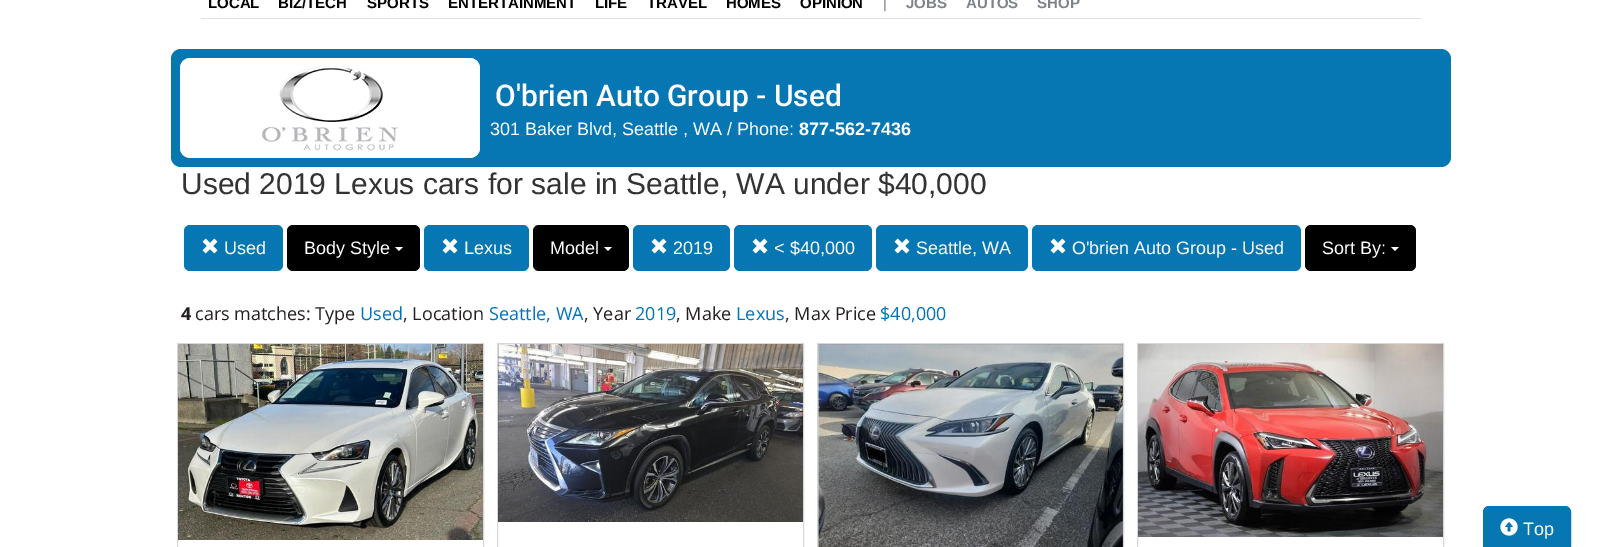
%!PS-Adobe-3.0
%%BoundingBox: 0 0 1621 547
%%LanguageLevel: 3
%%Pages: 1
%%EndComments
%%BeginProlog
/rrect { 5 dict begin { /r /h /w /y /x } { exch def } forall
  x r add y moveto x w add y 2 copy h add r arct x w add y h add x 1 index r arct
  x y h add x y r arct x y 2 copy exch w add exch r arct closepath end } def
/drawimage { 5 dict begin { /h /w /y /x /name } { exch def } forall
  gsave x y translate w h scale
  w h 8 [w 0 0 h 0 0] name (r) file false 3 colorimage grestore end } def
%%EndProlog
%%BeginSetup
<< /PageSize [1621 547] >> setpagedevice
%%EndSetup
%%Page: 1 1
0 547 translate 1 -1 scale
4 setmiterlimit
1 setgray
0 0 1621 547 rectfill
0.878 setgray
201 18 1220 1 rectfill
0.027 0.467 0.702 setrgbcolor
171 49 1280 118 10 rrect fill
1 setgray
180 58 300 100 10 rrect fill
(images/1.raw) 180 58 300 100 drawimage
0.027 0.467 0.702 setrgbcolor
184 225 99 46 6 rrect fill
(images/2.raw) 202 238 16 16 drawimage
0 setgray
287 225 133 46 6 rrect fill
1 setgray
newpath 395 247 moveto 403 247 lineto 399 251 lineto closepath fill
0.027 0.467 0.702 setrgbcolor
424 225 105 46 6 rrect fill
(images/2.raw) 442 238 16 16 drawimage
0 setgray
533 225 96 46 6 rrect fill
1 setgray
newpath 604 247 moveto 612 247 lineto 608 251 lineto closepath fill
0.027 0.467 0.702 setrgbcolor
633 225 97 46 6 rrect fill
(images/2.raw) 651 238 16 16 drawimage
734 225 138 46 6 rrect fill
(images/2.raw) 752 238 16 16 drawimage
876 225 152 46 6 rrect fill
(images/2.raw) 894 238 16 16 drawimage
1032 225 269 46 6 rrect fill
(images/2.raw) 1050 238 16 16 drawimage
0 setgray
1305 225 111 46 6 rrect fill
1 setgray
newpath 1391 247 moveto 1399 247 lineto 1395 251 lineto closepath fill
0.831 0.847 0.851 setrgbcolor
177.5 343.5 306 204 rectstroke
(images/3.raw) 178 344 305 196 drawimage
497.5 343.5 306 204 rectstroke
(images/4.raw) 498 344 305 178 drawimage
817.5 343.5 306 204 rectstroke
(images/5.raw) 818 344 305 203 drawimage
1137.5 343.5 306 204 rectstroke
(images/6.raw) 1138 344 305 193 drawimage
0.027 0.467 0.702 setrgbcolor
1483.5 506.5 87 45 5.5 rrect gsave fill grestore
stroke
(images/7.raw) 1500 518 18 18 drawimage
/LiberationSans-Bold [15 0 0 -15 0 0] selectfont
0 setgray
208 8 moveto (LOCAL) show
278 8 moveto (BIZ/TECH) show
367 8 moveto (SPORTS) show
448 8 moveto (ENTERTAINMENT) show
595 8 moveto (LIFE) show
647 8 moveto (TRAVEL) show
726 8 moveto (HOMES) show
800 8 moveto (OPINION) show
/LiberationSans-Regular [15 0 0 -15 0 0] selectfont
0.494 0.514 0.545 setrgbcolor
883 8 moveto (|) show
/LiberationSans-Bold [15 0 0 -15 0 0] selectfont
906 8 moveto (JOBS) show
966 8 moveto (AUTOS) show
1037 8 moveto (SHOP) show
/Roboto-Medium [30 0 0 -30 0 0] selectfont
1 setgray
495 106 moveto (O'brien Auto Group - Used) show
/LiberationSans-Regular [18 0 0 -18 0 0] selectfont
490 135 moveto (301 Baker Blvd, Seattle , WA / Phone:) show
/LiberationSans-Bold [18 0 0 -18 0 0] selectfont
799 135 moveto (877-562-7436) show
/LiberationSans-Regular [30 0 0 -30 0 0] selectfont
0.2 setgray
181 194 moveto (Used 2019 Lexus cars for sale in Seattle, WA under $40,000) show
/LiberationSans-Regular [18 0 0 -18 0 0] selectfont
1 setgray
224 254 moveto (Used) show
304 254 moveto (Body Style) show
464 254 moveto (Lexus) show
550 254 moveto (Model) show
673 254 moveto (2019) show
774 254 moveto (< $40,000) show
916 254 moveto (Seattle, WA) show
1072 254 moveto (O'brien Auto Group - Used) show
1322 254 moveto (Sort By:) show
/OpenSans-Bold [18 0 0 -18 0 0] selectfont
0.137 0.122 0.125 setrgbcolor
181 320 moveto (4) show
/OpenSans-Regular [18 0 0 -18 0 0] selectfont
195 320 moveto (cars matches: Type) show
0 0.451 0.741 setrgbcolor
360 320 moveto (Used) show
0.137 0.122 0.125 setrgbcolor
403 320 moveto (, Location) show
0 0.451 0.741 setrgbcolor
489 320 moveto (Seattle, WA) show
0.137 0.122 0.125 setrgbcolor
584 320 moveto (, Year) show
0 0.451 0.741 setrgbcolor
635 320 moveto (2019) show
0.137 0.122 0.125 setrgbcolor
676 320 moveto (, Make) show
0 0.451 0.741 setrgbcolor
736 320 moveto (Lexus) show
0.137 0.122 0.125 setrgbcolor
785 320 moveto (, Max Price) show
0 0.451 0.741 setrgbcolor
880 320 moveto ($40,000) show
/LiberationSans-Regular [18 0 0 -18 0 0] selectfont
1 setgray
1523 535 moveto (Top) show
showpage
%%EOF
